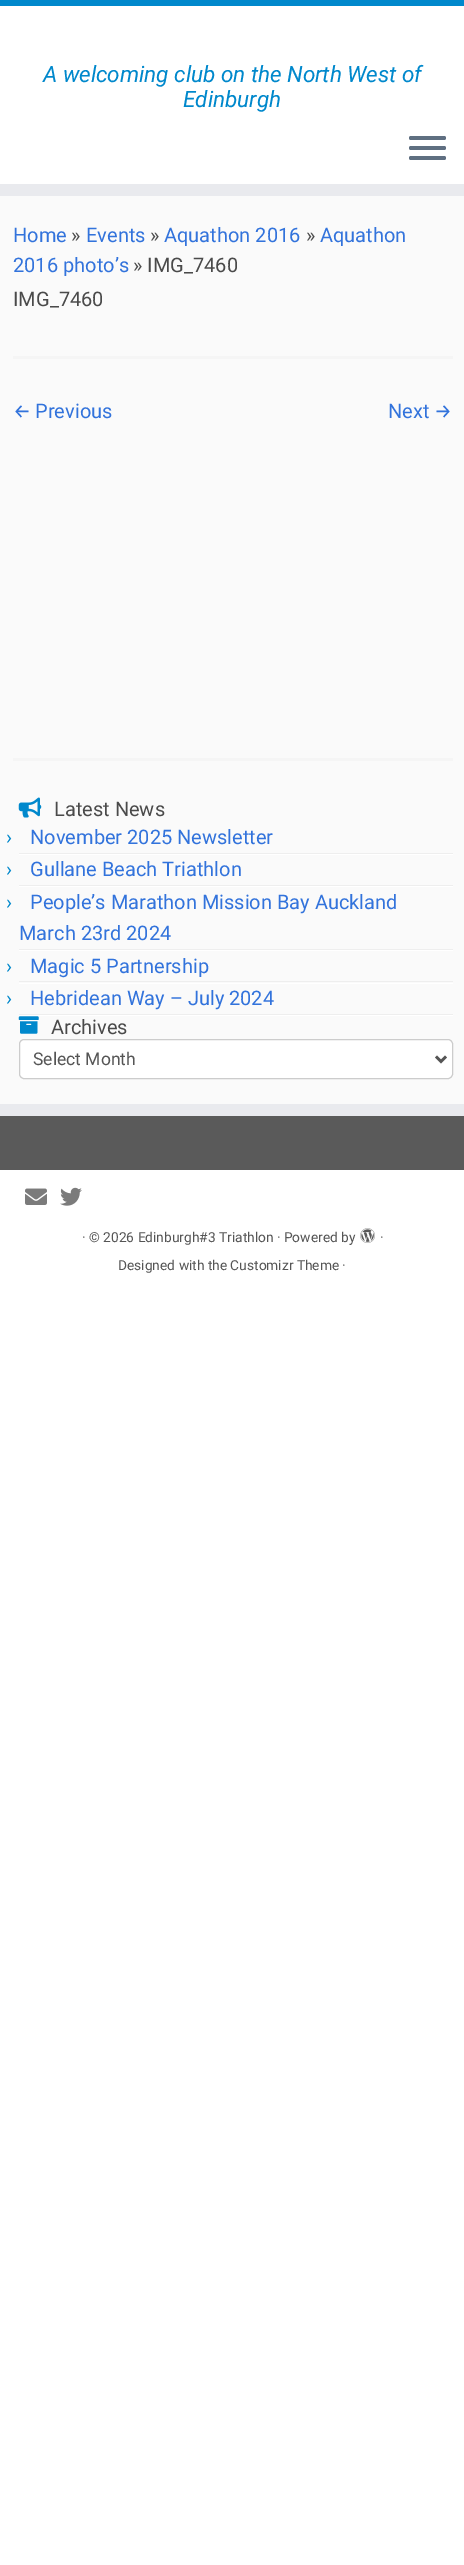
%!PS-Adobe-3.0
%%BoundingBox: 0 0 464 2565
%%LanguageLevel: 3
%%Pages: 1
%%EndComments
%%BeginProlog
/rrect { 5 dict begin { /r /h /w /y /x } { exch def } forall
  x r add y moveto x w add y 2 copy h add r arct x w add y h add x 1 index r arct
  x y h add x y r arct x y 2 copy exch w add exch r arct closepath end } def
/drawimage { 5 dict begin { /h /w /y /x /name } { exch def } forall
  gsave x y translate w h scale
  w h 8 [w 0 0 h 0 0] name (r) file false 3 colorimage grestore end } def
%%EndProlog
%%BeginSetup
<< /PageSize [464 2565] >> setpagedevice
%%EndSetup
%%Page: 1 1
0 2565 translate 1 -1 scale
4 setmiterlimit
1 setgray
0 0 464 2565 rectfill
0.98 setgray
0 196 464 908 rectfill
0 0.533 0.8 setrgbcolor
0 0 464 6 rectfill
0.914 0.918 0.933 setrgbcolor
0 184 464 12 rectfill
0.373 0.435 0.506 setrgbcolor
409 136 37 4 2 rrect fill
409 146 37 4 2 rrect fill
409 156 37 4 2 rrect fill
0.961 setgray
13 356 440 3 rectfill
13 758 440 3 rectfill
(images/1.raw) 18 797 24 21 drawimage
0.933 setgray
19 853 434 1 rectfill
1 setgray
19 854 434 1 rectfill
0.933 setgray
19 885 434 1 rectfill
1 setgray
19 886 434 1 rectfill
0.933 setgray
19 949 434 1 rectfill
1 setgray
19 950 434 1 rectfill
0.933 setgray
19 981 434 1 rectfill
1 setgray
19 983 434 1 rectfill
0.933 setgray
19 1014 434 1 rectfill
1 setgray
19 1015 434 1 rectfill
(images/2.raw) 18 1016 21 18 drawimage
19.5 1039.5 433 39 4.5 rrect gsave fill grestore
0.8 setgray
stroke
0.333 setgray
2.5 setlinewidth
newpath 436 1056.5 moveto 441 1061.5 lineto 446 1056.5 lineto stroke
0.353 setgray
0 1116 464 54 rectfill
0.914 0.918 0.933 setrgbcolor
0 1104 464 12 rectfill
(images/3.raw) 25 1188 22 17 drawimage
(images/4.raw) 60 1187 22 19 drawimage
(images/5.raw) 360 1228 15 15 drawimage
/Roboto-Italic [22.5 0 0 -22.5 0 0] selectfont
0 0.533 0.8 setrgbcolor
43 82 moveto (A welcoming club on the North West of) show
183 107 moveto (Edinburgh) show
/Roboto-Regular [20 0 0 -20 0 0] selectfont
0.196 0.451 0.863 setrgbcolor
13 242 moveto (Home) show
0.29 setgray
71 242 moveto (») show
0.196 0.451 0.863 setrgbcolor
86 242 moveto (Events) show
0.29 setgray
150 242 moveto (») show
0.196 0.451 0.863 setrgbcolor
164 242 moveto (Aquathon 2016) show
0.29 setgray
306 242 moveto (») show
0.196 0.451 0.863 setrgbcolor
320 242 moveto (Aquathon) show
13 272 moveto (2016 photo’s) show
0.29 setgray
133 272 moveto (» IMG_7460) show
13 306 moveto (IMG_7460) show
/FiraSans-Regular [20 0 0 -20 0 0] selectfont
0.196 0.451 0.863 setrgbcolor
13 418 moveto (←) show
/Roboto-Regular [20 0 0 -20 0 0] selectfont
35 418 moveto (Previous) show
388 418 moveto (Next) show
/FiraSans-Regular [20 0 0 -20 0 0] selectfont
434 418 moveto (→) show
/Roboto-Regular [20 0 0 -20 0 0] selectfont
0.29 setgray
54 816 moveto (Latest News) show
0 0.533 0.8 setrgbcolor
6 844 moveto (›) show
0.196 0.451 0.863 setrgbcolor
30 844 moveto (November 2025 Newsletter) show
0 0.533 0.8 setrgbcolor
6 876 moveto (›) show
0.196 0.451 0.863 setrgbcolor
30 876 moveto (Gullane Beach Triathlon) show
0 0.533 0.8 setrgbcolor
6 909 moveto (›) show
0.196 0.451 0.863 setrgbcolor
30 909 moveto (People’s Marathon Mission Bay Auckland) show
19 940 moveto (March 23rd 2024) show
0 0.533 0.8 setrgbcolor
6 973 moveto (›) show
0.196 0.451 0.863 setrgbcolor
30 973 moveto (Magic 5 Partnership) show
0 0.533 0.8 setrgbcolor
6 1005 moveto (›) show
0.196 0.451 0.863 setrgbcolor
30 1005 moveto (Hebridean Way – July 2024) show
0.29 setgray
51 1034 moveto (Archives) show
/Roboto-Regular [17.5 0 0 -17.5 0 0] selectfont
0.333 setgray
33 1065 moveto (Select Month) show
/Roboto-Regular [13.75 0 0 -13.75 0 0] selectfont
82 1242 moveto (· © 2026 Edinburgh#3 Triathlon · Powered by) show
380 1242 moveto (·) show
118 1270 moveto (Designed with the Customizr Theme ·) show
showpage
%%EOF
